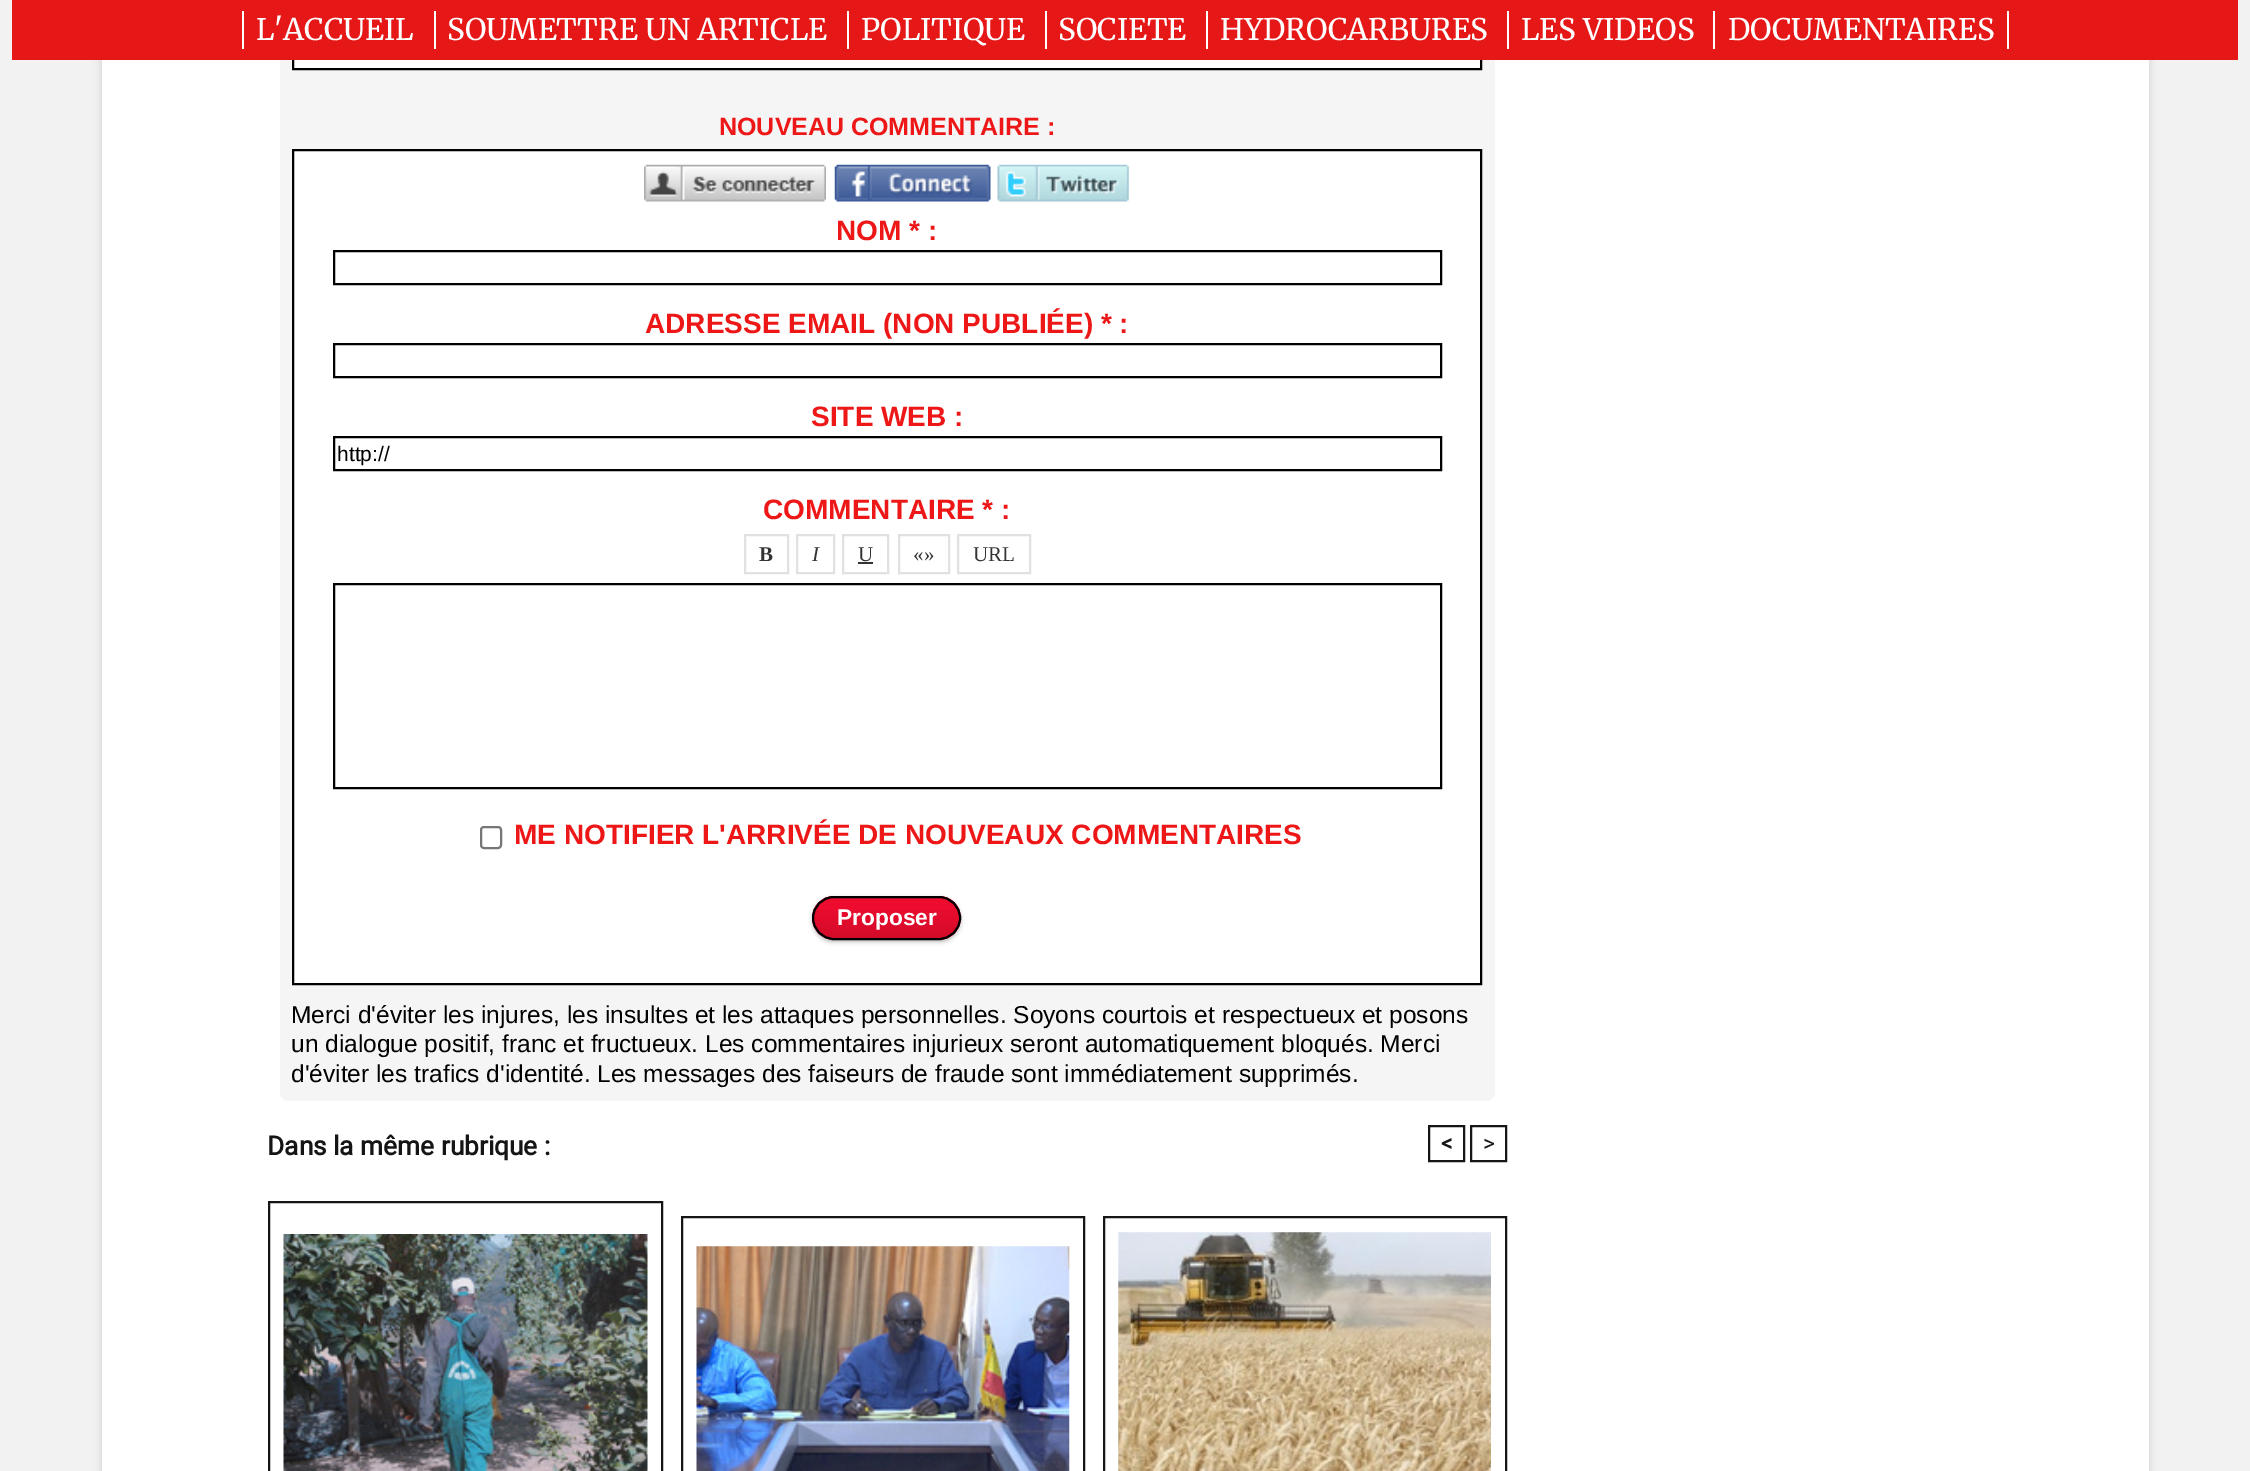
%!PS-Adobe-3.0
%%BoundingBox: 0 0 2250 1471
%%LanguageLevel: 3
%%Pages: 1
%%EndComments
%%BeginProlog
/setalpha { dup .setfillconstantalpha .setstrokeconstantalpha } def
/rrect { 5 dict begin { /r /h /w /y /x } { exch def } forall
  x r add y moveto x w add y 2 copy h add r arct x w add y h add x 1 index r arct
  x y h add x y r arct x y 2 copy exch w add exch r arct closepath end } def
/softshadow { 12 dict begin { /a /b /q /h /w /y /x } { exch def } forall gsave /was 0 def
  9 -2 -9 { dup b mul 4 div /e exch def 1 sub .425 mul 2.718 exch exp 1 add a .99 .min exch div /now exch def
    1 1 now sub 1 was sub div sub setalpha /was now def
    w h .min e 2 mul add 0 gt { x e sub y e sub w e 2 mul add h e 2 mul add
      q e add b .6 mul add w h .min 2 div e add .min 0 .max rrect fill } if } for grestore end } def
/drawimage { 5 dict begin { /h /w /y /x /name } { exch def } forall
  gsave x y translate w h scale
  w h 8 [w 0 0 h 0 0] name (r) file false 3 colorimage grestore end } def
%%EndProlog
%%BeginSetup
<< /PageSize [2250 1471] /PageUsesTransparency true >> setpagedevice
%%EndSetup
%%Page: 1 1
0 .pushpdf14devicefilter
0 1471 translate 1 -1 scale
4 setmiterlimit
0.949 setgray
0 0 2250 1471 rectfill
0.8 setgray
102 -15 2047 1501 0 5 1 softshadow
1 setgray
102 60 2047 1411 rectfill
0.961 setgray
280 -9 1215 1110 9 rrect fill
1 setgray
294 60 1186 8 rectfill
0 setgray
2 setlinewidth
293 -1 1188 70 rectstroke
0.902 0.09 0.09 setrgbcolor
12 0 2226 60 rectfill
1 setgray
242 11 2 38 rectfill
434 11 2 38 rectfill
847 11 2 38 rectfill
1045 11 2 38 rectfill
1206 11 2 38 rectfill
1507 11 2 38 rectfill
2007 11 2 38 rectfill
1713 11 2 38 rectfill
newpath 293 150 moveto 1481 150 lineto 1481 984 lineto 293 984 lineto closepath gsave fill grestore
0 setgray
stroke
(images/1.raw) 644 164 182 38 drawimage
(images/2.raw) 834 164 157 38 drawimage
(images/3.raw) 997 164 132 38 drawimage
334 251 1107 33 rectstroke
334 344 1107 33 rectstroke
334 437 1107 33 rectstroke
0.882 setgray
745 535 43 38 rectstroke
797 535 37 38 rectstroke
843 535 45 38 rectstroke
0.2 setgray
858 562 15 2 rectfill
0.882 setgray
899 535 50 38 rectstroke
958 535 72 38 rectstroke
0 setgray
334 584 1107 204 rectstroke
0.463 setgray
481 827 20 21 3 rrect stroke
0 setgray
812 898 149 44 22 2 0.25 softshadow
0.929 0.047 0.18 setrgbcolor
812 896 149 44 22 rrect fill
(images/4.raw) 812 910 149 30 drawimage
0.012 0 0.012 setrgbcolor
813 897 147 42 21 rrect stroke
0.082 setgray
1429 1126 35 35 rectstroke
1471 1126 35 35 rectstroke
269 1202 393 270 rectstroke
(images/5.raw) 283 1234 365 237 drawimage
682 1217 402 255 rectstroke
(images/6.raw) 696 1246 374 225 drawimage
1104 1217 402 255 rectstroke
(images/7.raw) 1118 1232 373 239 drawimage
/Merriweather-Light [29.75 0 0 -29.75 0 0] selectfont
1 setgray
256 40 moveto (L'ACCUEIL) show
447 40 moveto (SOUMETTRE UN ARTICLE) show
861 40 moveto (POLITIQUE) show
1058 40 moveto (SOCIETE) show
1220 40 moveto (HYDROCARBURES) show
1521 40 moveto (LES VIDEOS) show
1728 40 moveto (DOCUMENTAIRES) show
/LiberationSans-Bold [25 0 0 -25 0 0] selectfont
0.929 0.09 0.09 setrgbcolor
719 135 moveto (NOUVEAU COMMENTAIRE :) show
/LiberationSans-Bold [28 0 0 -28 0 0] selectfont
836 240 moveto (NOM * :) show
645 333 moveto (ADRESSE EMAIL \(NON PUBLIÉE\) * :) show
811 426 moveto (SITE WEB :) show
/LiberationSans-Regular [21 0 0 -21 0 0] selectfont
0 setgray
337 461 moveto (http://) show
/LiberationSans-Bold [28 0 0 -28 0 0] selectfont
0.929 0.09 0.09 setrgbcolor
763 519 moveto (COMMENTAIRE * :) show
/LiberationSerif-Bold [21 0 0 -21 0 0] selectfont
0.2 setgray
759 561 moveto (B) show
/LiberationSerif-Italic [21 0 0 -21 0 0] selectfont
812 561 moveto (I) show
/LiberationSerif-Regular [21 0 0 -21 0 0] selectfont
858 561 moveto (U) show
913 561 moveto («») show
973 561 moveto (URL) show
/LiberationSans-Bold [28 0 0 -28 0 0] selectfont
0.929 0.09 0.09 setrgbcolor
514 844 moveto (ME NOTIFIER L'ARRIVÉE DE NOUVEAUX COMMENTAIRES) show
/LiberationSans-Bold [22.75 0 0 -22.75 0 0] selectfont
1 setgray
837 925 moveto (Proposer) show
/LiberationSans-Regular [24.5 0 0 -24.5 0 0] selectfont
0 setgray
291 1023 moveto (Merci d'éviter les injures, les insultes et les attaques personnelles. Soyons courtois et respectueux et posons) show
291 1052 moveto (un dialogue positif, franc et fructueux. Les commentaires injurieux seront automatiquement bloqués. Merci) show
291 1082 moveto (d'éviter les trafics d'identité. Les messages des faiseurs de fraude sont immédiatement supprimés.) show
/Roboto-Bold [26.25 0 0 -26.25 0 0] selectfont
0.082 setgray
267 1155 moveto (Dans la même rubrique :) show
/Roboto-Bold [22.75 0 0 -22.75 0 0] selectfont
1441 1151 moveto (<) show
/Roboto-Regular [22.75 0 0 -22.75 0 0] selectfont
1483 1151 moveto (>) show
.poppdf14devicefilter showpage
%%EOF
